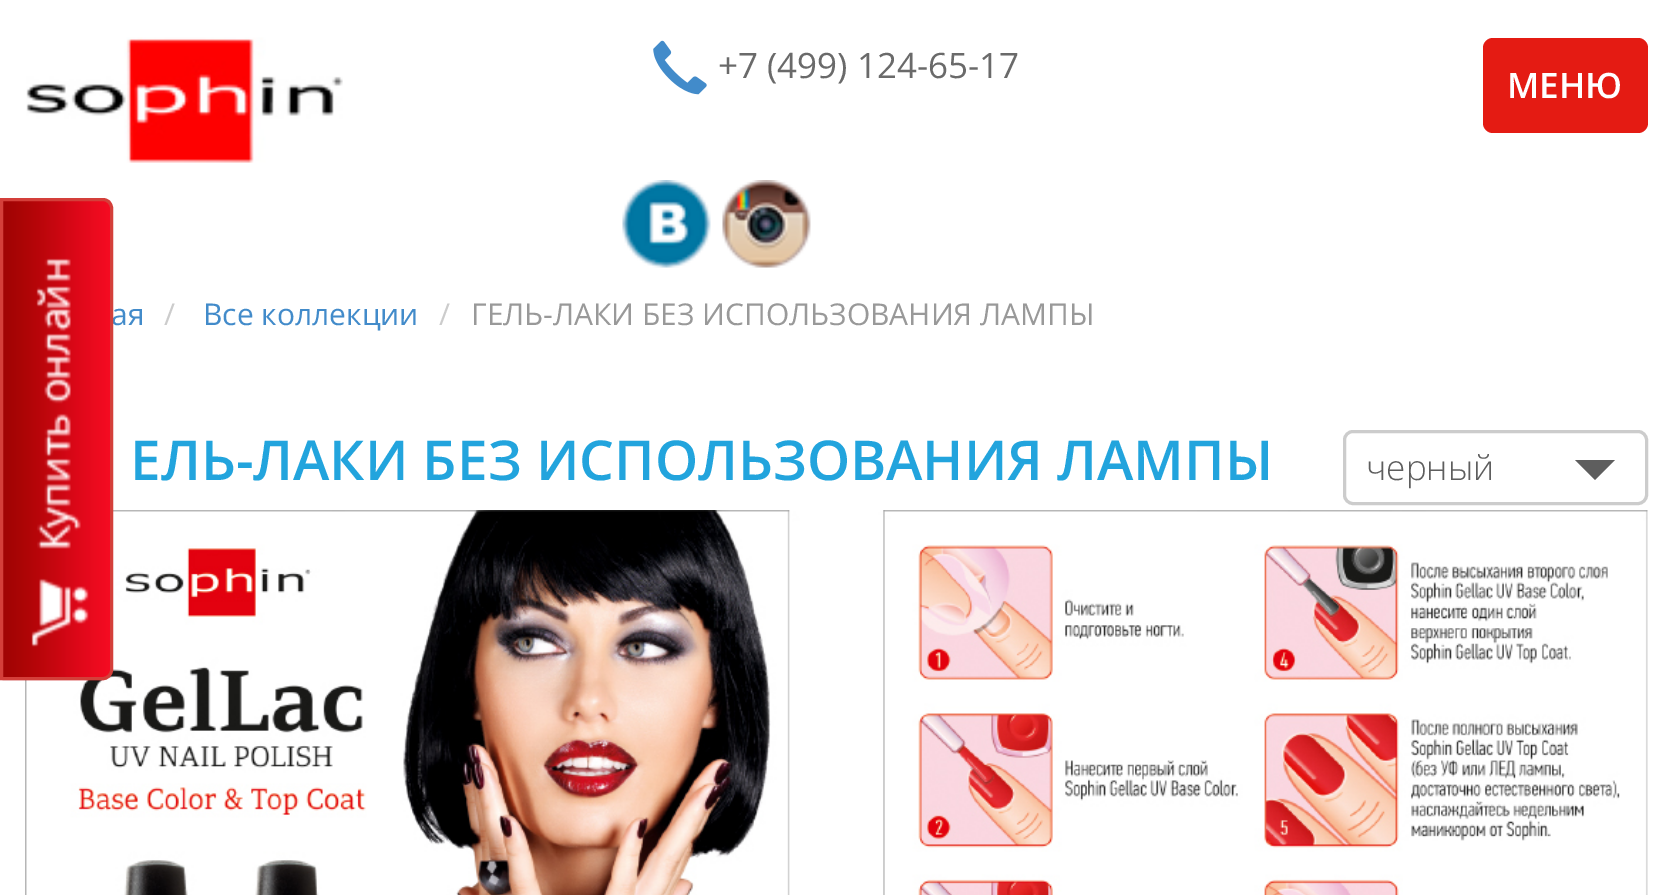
%!PS-Adobe-3.0
%%BoundingBox: 0 0 1671 895
%%LanguageLevel: 3
%%Pages: 1
%%EndComments
%%BeginProlog
/rrect { 5 dict begin { /r /h /w /y /x } { exch def } forall
  x r add y moveto x w add y 2 copy h add r arct x w add y h add x 1 index r arct
  x y h add x y r arct x y 2 copy exch w add exch r arct closepath end } def
/drawimage { 5 dict begin { /h /w /y /x /name } { exch def } forall
  gsave x y translate w h scale
  w h 8 [w 0 0 h 0 0] name (r) file false 3 colorimage grestore end } def
%%EndProlog
%%BeginSetup
<< /PageSize [1671 895] >> setpagedevice
%%EndSetup
%%Page: 1 1
0 895 translate 1 -1 scale
4 setmiterlimit
1 setgray
0 0 1671 895 rectfill
(images/2.raw) 26 37 317 126 drawimage
(images/3.raw) 653 40 54 55 drawimage
0.894 0.106 0.075 setrgbcolor
1483 38 165 95 10 rrect fill
(images/4.raw) 622 180 89 88 drawimage
(images/5.raw) 722 180 89 88 drawimage
0.8 setgray
3 setlinewidth
1344.5 431.5 302 72 8.5 rrect stroke
0.369 setgray
newpath 1575 460 moveto 1615 460 lineto 1595 480 lineto closepath fill
(images/6.raw) 25 510 1623 385 drawimage
/OpenSans-Regular [35 0 0 -35 0 0] selectfont
0.416 setgray
718 78 moveto (+7 \(499\) 124-65-17) show
/OpenSans-SemiBold [35 0 0 -35 0 0] selectfont
1 setgray
1507 98 moveto (МЕНЮ) show
/OpenSans-Regular [30 0 0 -30 0 0] selectfont
0.259 0.545 0.792 setrgbcolor
111 325 moveto (ая) show
(images/1.raw) 2 199 111 482 drawimage
0.831 0.247 0.227 setrgbcolor
newpath 1.5 199.5 moveto 103 199.5 lineto 107.5 199.5 111.5 203.5 111.5 208 curveto 111.5 670 lineto 111.5 674.5 107.5 678.5 103 678.5 curveto 1.5 678.5 lineto closepath stroke
0.8 setgray
164 325 moveto (/) show
0.259 0.545 0.792 setrgbcolor
203 325 moveto (Все коллекции) show
0.8 setgray
439 325 moveto (/) show
0.6 setgray
471 325 moveto (ГЕЛЬ-ЛАКИ БЕЗ ИСПОЛЬЗОВАНИЯ ЛАМПЫ) show
/OpenSans-SemiBold [55 0 0 -55 0 0] selectfont
0.133 0.643 0.867 setrgbcolor
130 480 moveto (ЕЛЬ-ЛАКИ БЕЗ ИСПОЛЬЗОВАНИЯ ЛАМПЫ) show
/OpenSans-Light [35 0 0 -35 0 0] selectfont
0.369 setgray
1366 480 moveto (черный) show
showpage
%%EOF
